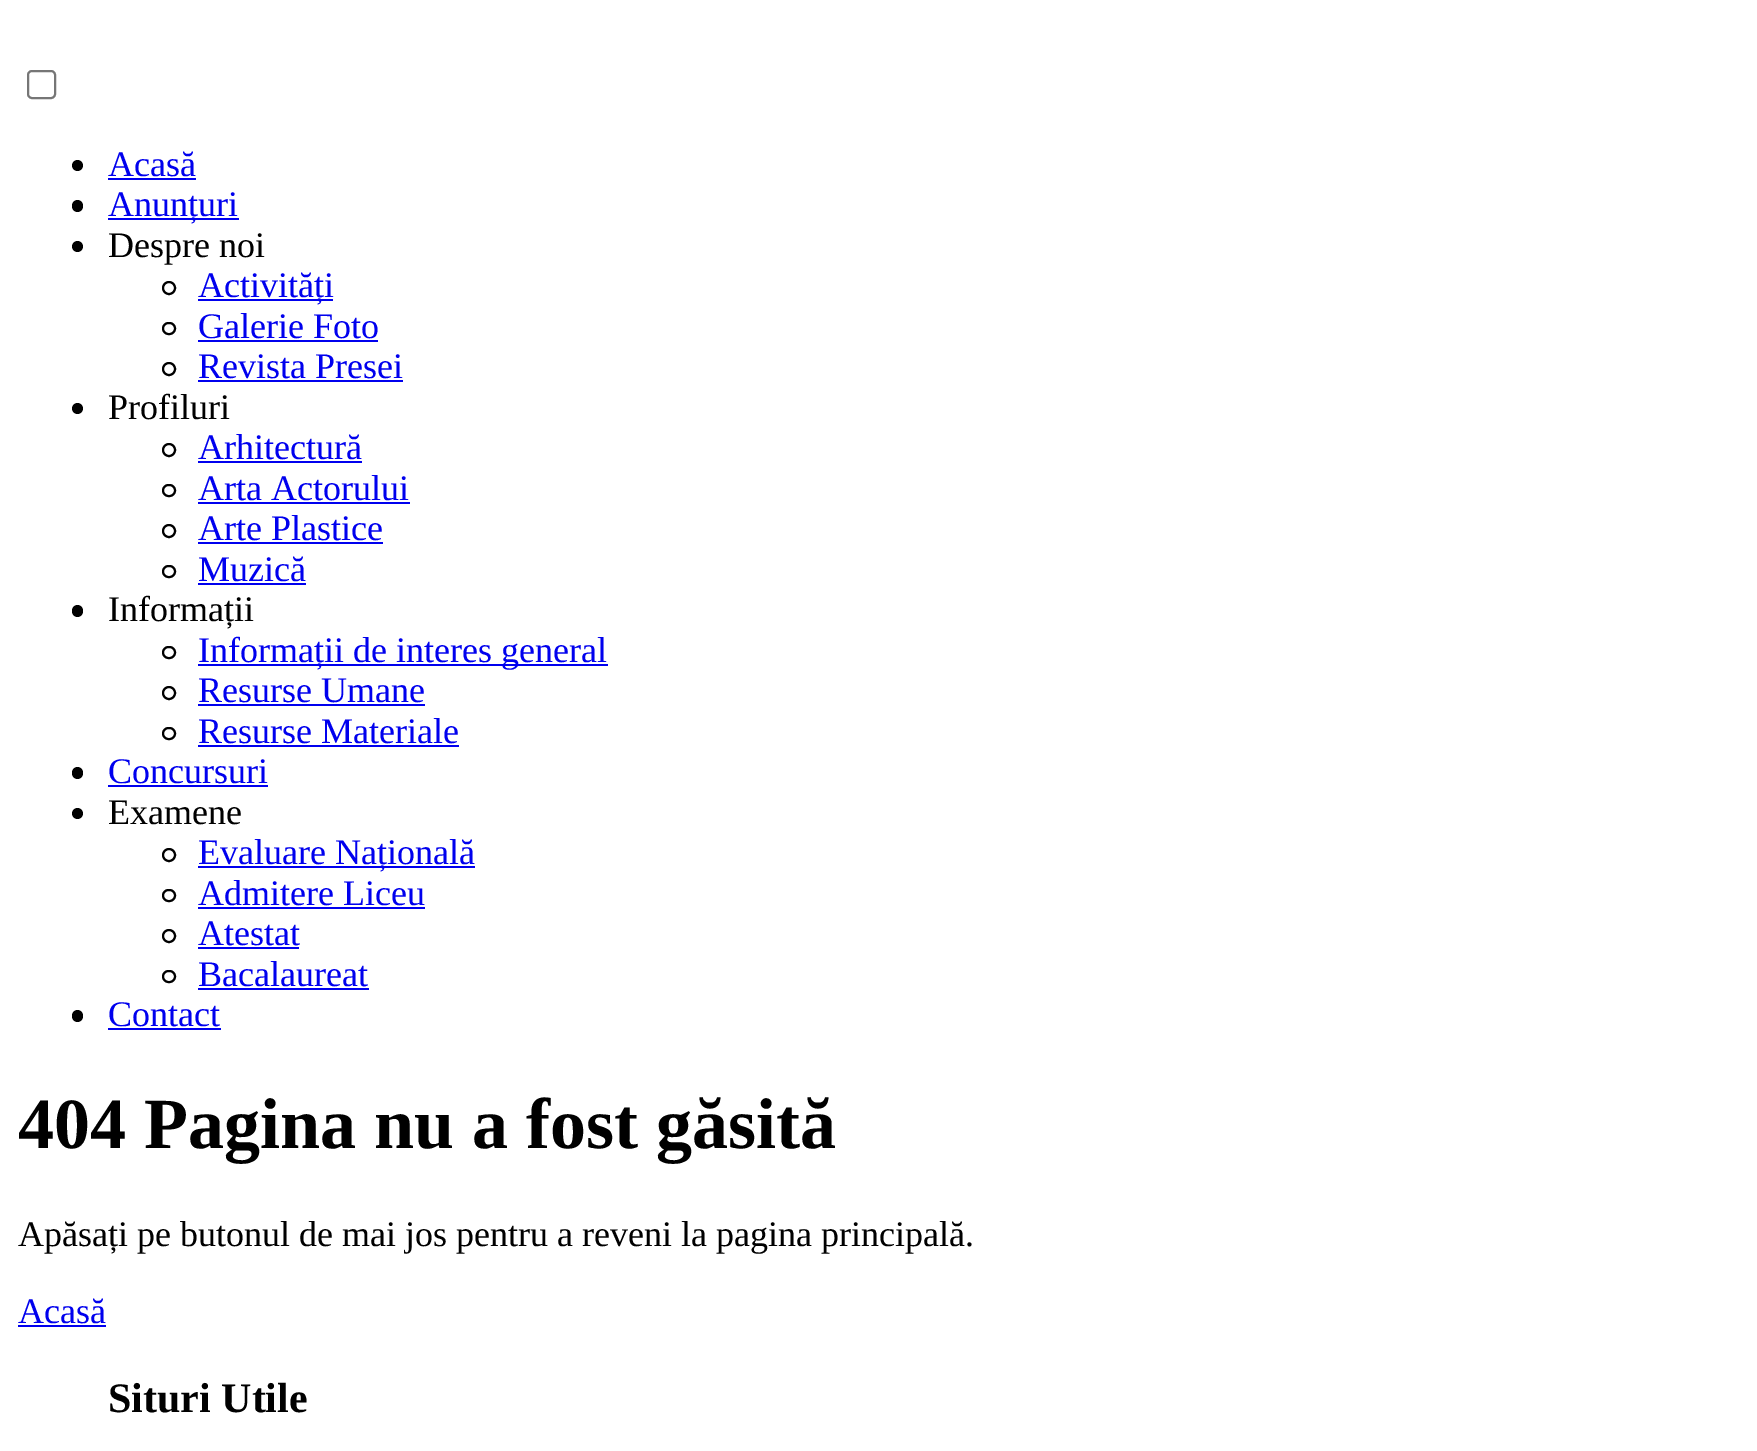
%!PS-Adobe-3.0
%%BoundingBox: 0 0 1757 1451
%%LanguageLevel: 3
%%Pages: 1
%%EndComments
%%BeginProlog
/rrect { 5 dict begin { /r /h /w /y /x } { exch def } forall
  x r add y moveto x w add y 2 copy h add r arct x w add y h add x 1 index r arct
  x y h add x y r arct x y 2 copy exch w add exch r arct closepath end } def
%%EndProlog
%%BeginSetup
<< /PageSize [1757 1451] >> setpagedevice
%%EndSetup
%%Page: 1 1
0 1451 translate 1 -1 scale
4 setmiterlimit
1 setgray
0 0 1757 1451 rectfill
0.463 setgray
2 setlinewidth
28 71 27 27 4 rrect stroke
0 setgray
newpath 77.5 165.5 5.5 0 360 arc closepath fill
0 0 0.933 setrgbcolor
108 178 88 2 rectfill
0 setgray
72 200 11 12 5.5 rrect fill
0 0 0.933 setrgbcolor
108 218 131 2 rectfill
0 setgray
newpath 77.5 246.5 5.5 0 360 arc closepath fill
newpath 169 288 6 0 360 arc closepath stroke
0 0 0.933 setrgbcolor
198 299 135 2 rectfill
0 setgray
163 323 12 11 5.5 rrect stroke
0 0 0.933 setrgbcolor
198 340 180 2 rectfill
0 setgray
newpath 169 369 6 0 360 arc closepath stroke
0 0 0.933 setrgbcolor
198 380 205 2 rectfill
0 setgray
newpath 77.5 408.5 5.5 0 360 arc closepath fill
newpath 169 450 6 0 360 arc closepath stroke
0 0 0.933 setrgbcolor
198 461 164 2 rectfill
0 setgray
163 485 12 11 5.5 rrect stroke
0 0 0.933 setrgbcolor
198 502 212 2 rectfill
0 setgray
newpath 169 531 6 0 360 arc closepath stroke
0 0 0.933 setrgbcolor
198 542 185 2 rectfill
0 setgray
163 566 12 11 5.5 rrect stroke
0 0 0.933 setrgbcolor
198 583 108 2 rectfill
0 setgray
72 605 11 12 5.5 rrect fill
163 647 12 11 5.5 rrect stroke
0 0 0.933 setrgbcolor
198 664 410 2 rectfill
0 setgray
newpath 169 693 6 0 360 arc closepath stroke
0 0 0.933 setrgbcolor
198 704 227 2 rectfill
0 setgray
163 728 12 11 5.5 rrect stroke
0 0 0.933 setrgbcolor
198 745 261 2 rectfill
0 setgray
72 767 11 12 5.5 rrect fill
0 0 0.933 setrgbcolor
108 785 160 2 rectfill
0 setgray
newpath 77.5 813.5 5.5 0 360 arc closepath fill
newpath 169 855 6 0 360 arc closepath stroke
0 0 0.933 setrgbcolor
198 866 277 2 rectfill
0 setgray
163 890 12 11 5.5 rrect stroke
0 0 0.933 setrgbcolor
198 907 227 2 rectfill
0 setgray
newpath 169 936 6 0 360 arc closepath stroke
0 0 0.933 setrgbcolor
198 947 101 2 rectfill
0 setgray
163 971 12 11 5.5 rrect stroke
0 0 0.933 setrgbcolor
198 988 171 2 rectfill
0 setgray
72 1010 11 12 5.5 rrect fill
0 0 0.933 setrgbcolor
108 1028 113 2 rectfill
18 1325 88 2 rectfill
/LiberationSerif-Regular [36 0 0 -36 0 0] selectfont
108 176 moveto (Acasă) show
108 216 moveto (Anunțuri) show
0 setgray
108 257 moveto (Despre noi) show
0 0 0.933 setrgbcolor
198 297 moveto (Activități) show
198 338 moveto (Galerie Foto) show
198 378 moveto (Revista Presei) show
0 setgray
108 419 moveto (Profiluri) show
0 0 0.933 setrgbcolor
198 459 moveto (Arhitectură) show
198 500 moveto (Arta Actorului) show
198 540 moveto (Arte Plastice) show
198 581 moveto (Muzică) show
0 setgray
108 621 moveto (Informații) show
0 0 0.933 setrgbcolor
198 662 moveto (Informații de interes general) show
198 702 moveto (Resurse Umane) show
198 743 moveto (Resurse Materiale) show
108 783 moveto (Concursuri) show
0 setgray
108 824 moveto (Examene) show
0 0 0.933 setrgbcolor
198 864 moveto (Evaluare Națională) show
198 905 moveto (Admitere Liceu) show
198 945 moveto (Atestat) show
198 986 moveto (Bacalaureat) show
108 1026 moveto (Contact) show
/LiberationSerif-Bold [72 0 0 -72 0 0] selectfont
0 setgray
18 1148 moveto (404 Pagina nu a fost găsită) show
/LiberationSerif-Regular [36 0 0 -36 0 0] selectfont
18 1246 moveto (Apăsați pe butonul de mai jos pentru a reveni la pagina principală.) show
0 0 0.933 setrgbcolor
18 1323 moveto (Acasă) show
/LiberationSerif-Bold [42 0 0 -42 0 0] selectfont
0 setgray
108 1412 moveto (Situri Utile) show
showpage
%%EOF
